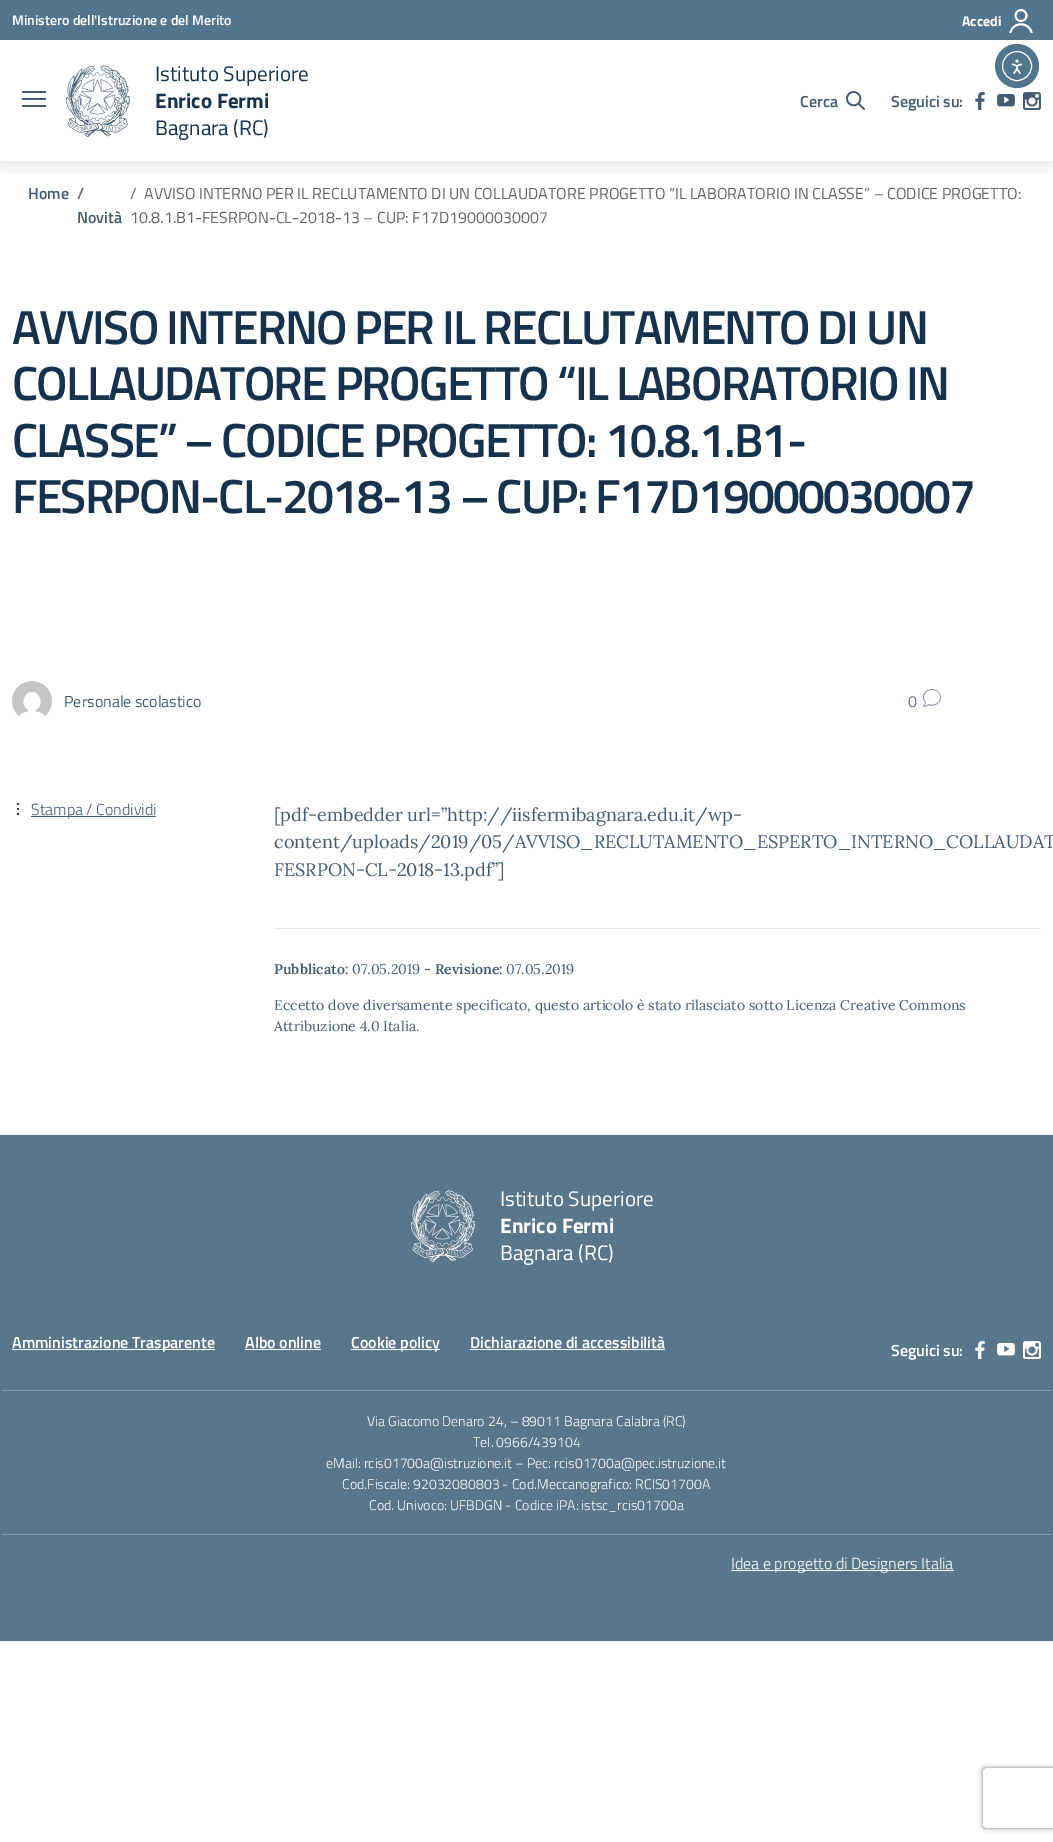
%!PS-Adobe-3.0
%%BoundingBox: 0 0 1053 1842
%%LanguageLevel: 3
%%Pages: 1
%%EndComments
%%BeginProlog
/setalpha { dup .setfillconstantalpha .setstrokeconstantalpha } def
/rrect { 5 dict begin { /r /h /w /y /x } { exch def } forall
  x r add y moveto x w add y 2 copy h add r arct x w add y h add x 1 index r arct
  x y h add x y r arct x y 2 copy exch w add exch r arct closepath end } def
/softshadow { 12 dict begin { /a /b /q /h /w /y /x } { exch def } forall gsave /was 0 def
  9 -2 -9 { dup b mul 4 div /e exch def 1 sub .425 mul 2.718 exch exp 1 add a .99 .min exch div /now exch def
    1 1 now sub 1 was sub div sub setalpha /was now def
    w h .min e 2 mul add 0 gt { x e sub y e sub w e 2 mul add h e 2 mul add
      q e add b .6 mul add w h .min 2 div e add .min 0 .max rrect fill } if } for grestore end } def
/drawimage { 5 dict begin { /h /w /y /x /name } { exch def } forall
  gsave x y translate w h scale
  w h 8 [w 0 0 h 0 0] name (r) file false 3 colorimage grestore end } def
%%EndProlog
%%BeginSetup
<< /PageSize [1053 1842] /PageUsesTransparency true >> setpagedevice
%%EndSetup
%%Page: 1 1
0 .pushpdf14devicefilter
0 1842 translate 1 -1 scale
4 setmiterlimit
1 setgray
0 0 1053 1842 rectfill
gsave
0 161 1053 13 rectclip
0 setgray
0 2 1053 161 0 12.5 0.1 softshadow
grestore
0.318 0.459 0.553 setrgbcolor
0 0 1053 40 rectfill
(images/1.raw) 1009 9 24 24 drawimage
0.271 0.357 0.443 setrgbcolor
22 98 24 2 1 rrect fill
22 91 24 2 1 rrect fill
22 105 24 2 1 rrect fill
(images/2.raw) 66 65 64 72 drawimage
(images/3.raw) 846 91 19 19 drawimage
(images/4.raw) 975 92 10 18 drawimage
(images/5.raw) 997 94 18 13 drawimage
(images/6.raw) 1023 92 18 18 drawimage
(images/7.raw) 12 681 40 36 drawimage
(images/8.raw) 923 689 18 18 drawimage
0.318 0.459 0.553 setrgbcolor
newpath 1017 66 22 0 360 arc closepath fill
1 setgray
newpath 1017 66 14.5 0 360 arc closepath stroke
(images/9.raw) 1011 59 12 15 drawimage
(images/10.raw) 17 803 2 12 drawimage
0.271 0.357 0.443 setrgbcolor
31 816 125 1 rectfill
0.906 0.918 0.929 setrgbcolor
274 928 767 1 rectfill
0.353 0.463 0.541 setrgbcolor
0 1135 1053 506 rectfill
(images/11.raw) 411 1190 64 72 drawimage
1 setgray
12 1349 203 1 rectfill
245 1349 76 1 rectfill
351 1349 89 1 rectfill
470 1349 195 1 rectfill
(images/12.raw) 975 1341 10 18 drawimage
(images/13.raw) 997 1343 18 13 drawimage
(images/14.raw) 1023 1341 18 18 drawimage
0.529 0.608 0.667 setrgbcolor
2 1390 1049 1 rectfill
2 1534 1049 1 rectfill
1 setgray
731 1570 223 1 rectfill
gsave
newpath 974 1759 moveto 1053 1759 lineto 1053 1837 lineto 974 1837 lineto closepath 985 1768 moveto 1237 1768 lineto 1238 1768 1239 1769 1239 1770 curveto 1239 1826 lineto 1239 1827 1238 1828 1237 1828 curveto 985 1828 lineto 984 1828 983 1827 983 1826 curveto 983 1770 lineto 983 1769 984 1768 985 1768 curveto closepath eoclip newpath
0.502 setgray
983 1768 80 60 2 2.5 1 softshadow
grestore
/TitilliumWeb-SemiBold [14 0 0 -14 0 0] selectfont
12 25 moveto (Ministero dell'Istruzione e del Merito) show
/TitilliumWeb-Bold [14 0 0 -14 0 0] selectfont
962 26 moveto (Accedi) show
/TitilliumWeb-Regular [21 0 0 -21 0 0] selectfont
0.09 0.196 0.302 setrgbcolor
155 81 moveto (Istituto Superiore) show
/TitilliumWeb-Bold [21 0 0 -21 0 0] selectfont
155 108 moveto (Enrico Fermi) show
/TitilliumWeb-Regular [21 0 0 -21 0 0] selectfont
155 135 moveto (Bagnara \(RC\)) show
/TitilliumWeb-SemiBold [16 0 0 -16 0 0] selectfont
0.271 0.357 0.443 setrgbcolor
800 107 moveto (Cerca) show
891 107 moveto (Seguici su:) show
28 199 moveto (Home) show
0.396 0.396 0.4 setrgbcolor
77 199 moveto (/) show
0.271 0.357 0.443 setrgbcolor
77 223 moveto (Novità) show
/TitilliumWeb-Regular [16 0 0 -16 0 0] selectfont
0.396 0.396 0.4 setrgbcolor
130 199 moveto (/) show
144 199 moveto (AVVISO INTERNO PER IL RECLUTAMENTO DI UN COLLAUDATORE PROGETTO “IL LABORATORIO IN CLASSE” – CODICE PROGETTO:) show
130 223 moveto (10.8.1.B1-FESRPON-CL-2018-13 – CUP: F17D19000030007) show
/TitilliumWeb-SemiBold [48 0 0 -48 0 0] selectfont
0.09 0.196 0.302 setrgbcolor
12 344 moveto -1.8 0 (AVVISO INTERNO PER IL RECLUTAMENTO DI UN) ashow
12 400 moveto -1.8 0 (COLLAUDATORE PROGETTO “IL LABORATORIO IN) ashow
12 457 moveto -1.8 0 (CLASSE” – CODICE PROGETTO: 10.8.1.B1-) ashow
12 513 moveto -1.8 0 (FESRPON-CL-2018-13 – CUP: F17D19000030007) ashow
/TitilliumWeb-Regular [16 0 0 -16 0 0] selectfont
0.271 0.357 0.443 setrgbcolor
64 707 moveto (Personale scolastico) show
/TitilliumWeb-Light [16 0 0 -16 0 0] selectfont
908 707 moveto (0) show
31 815 moveto (Stampa / Condividi) show
/Lora-Regular [18.1 0 0 -18.1 0 0] selectfont
274 821 moveto ([pdf-embedder url=”http://iisfermibagnara.edu.it/wp-) show
274 848 moveto (content/uploads/2019/05/AVVISO_RECLUTAMENTO_ESPERTO_INTERNO_COLLAUDAT) show
274 876 moveto (FESRPON-CL-2018-13.pdf”]) show
/Lora-SemiBold [14.1 0 0 -14.1 0 0] selectfont
274 974 moveto (Pubblicato:) show
/Lora-Regular [14.1 0 0 -14.1 0 0] selectfont
352 974 moveto (07.05.2019 -) show
/Lora-SemiBold [14.1 0 0 -14.1 0 0] selectfont
435 974 moveto (Revisione:) show
/Lora-Regular [14.1 0 0 -14.1 0 0] selectfont
506 974 moveto (07.05.2019) show
274 1010 moveto (Eccetto dove diversamente specificato, questo articolo è stato rilasciato sotto Licenza Creative Commons) show
274 1031 moveto (Attribuzione 4.0 Italia.) show
/TitilliumWeb-Regular [21 0 0 -21 0 0] selectfont
1 setgray
500 1206 moveto (Istituto Superiore) show
/TitilliumWeb-Bold [21 0 0 -21 0 0] selectfont
500 1233 moveto (Enrico Fermi) show
/TitilliumWeb-Regular [21 0 0 -21 0 0] selectfont
500 1260 moveto (Bagnara \(RC\)) show
/TitilliumWeb-SemiBold [16 0 0 -16 0 0] selectfont
12 1348 moveto (Amministrazione Trasparente) show
245 1348 moveto (Albo online) show
351 1348 moveto (Cookie policy) show
470 1348 moveto (Dichiarazione di accessibilità) show
891 1356 moveto (Seguici su:) show
/TitilliumWeb-Light [14 0 0 -14 0 0] selectfont
367 1426 moveto (Via Giacomo Denaro 24, – 89011 Bagnara Calabra \(RC\)) show
473 1447 moveto (Tel. 0966/439104) show
326 1468 moveto (eMail: rcis01700a@istruzione.it – Pec: rcis01700a@pec.istruzione.it) show
342 1489 moveto (Cod.Fiscale: 92032080803 - Cod.Meccanografico: RCIS01700A) show
369 1510 moveto (Cod. Univoco: UFBDGN - Codice iPA: istsc_rcis01700a) show
/TitilliumWeb-Light [16 0 0 -16 0 0] selectfont
731 1569 moveto (Idea e progetto di Designers Italia) show
.poppdf14devicefilter showpage
%%EOF
